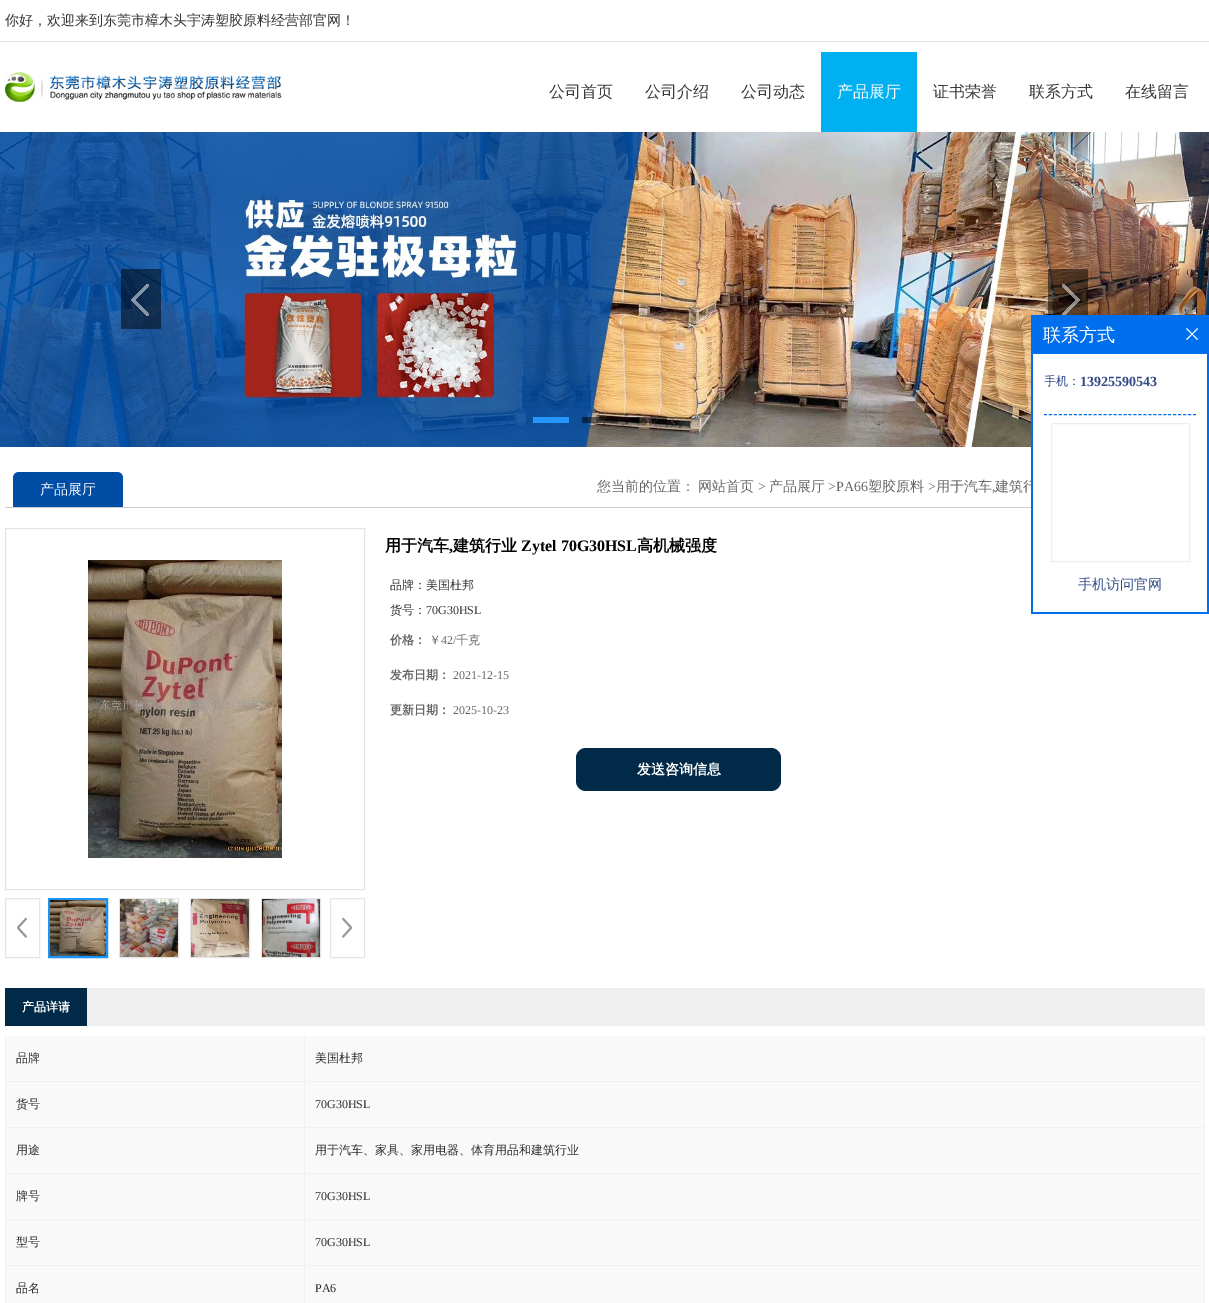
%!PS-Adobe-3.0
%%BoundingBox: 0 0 1209 1303
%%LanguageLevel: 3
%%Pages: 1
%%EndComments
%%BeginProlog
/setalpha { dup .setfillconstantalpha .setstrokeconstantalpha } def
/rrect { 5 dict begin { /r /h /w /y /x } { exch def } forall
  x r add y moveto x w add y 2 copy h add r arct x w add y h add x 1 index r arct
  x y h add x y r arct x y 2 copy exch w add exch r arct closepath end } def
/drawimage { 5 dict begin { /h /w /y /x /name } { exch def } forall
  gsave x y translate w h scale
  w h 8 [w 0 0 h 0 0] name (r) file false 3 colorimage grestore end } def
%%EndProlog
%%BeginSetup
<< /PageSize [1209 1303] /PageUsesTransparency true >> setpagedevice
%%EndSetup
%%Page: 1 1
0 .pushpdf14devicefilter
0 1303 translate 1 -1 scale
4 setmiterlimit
1 setgray
0 0 1209 1303 rectfill
0.898 setgray
0 41 1209 1 rectfill
(images/1.raw) 5 72 277 30 drawimage
0 0.69 0.941 setrgbcolor
821 52 96 80 rectfill
(images/2.raw) 0 132 1209 315 drawimage
0.5 setalpha
0 setgray
121 269 40 60 rectfill
1 setalpha
(images/3.raw) 131 284 18 32 drawimage
0.5 setalpha
1048 269 40 46 rectfill
1 setalpha
(images/4.raw) 1062 284 18 31 drawimage
0.149 0.588 1 setrgbcolor
533 417 36 6 rectfill
0.5 setalpha
0 setgray
582 417 36 6 rectfill
631 417 36 6 rectfill
1 setalpha
0.8 setgray
5 507 1026 1 rectfill
0 0.302 0.647 setrgbcolor
newpath 19 472 moveto 117 472 lineto 120.5 472 123 474.5 123 478 curveto 123 507 lineto 13 507 lineto 13 478 lineto 13 474.5 15.5 472 19 472 curveto closepath fill
0.894 setgray
5.5 528.5 359 361 rectstroke
(images/5.raw) 88 560 194 298 drawimage
(images/6.raw) 17 917 10 21 drawimage
0.898 setgray
5.5 898.5 34 59 rectstroke
0.106 0.58 0.965 setrgbcolor
2 setlinewidth
49 899 58 58 rectstroke
(images/7.raw) 50 900 56 56 drawimage
0.898 setgray
1 setlinewidth
119.5 898.5 59 59 rectstroke
(images/8.raw) 120 899 58 58 drawimage
190.5 898.5 59 59 rectstroke
(images/9.raw) 191 899 58 58 drawimage
261.5 898.5 59 59 rectstroke
(images/10.raw) 262 899 58 58 drawimage
(images/11.raw) 342 917 10 21 drawimage
330.5 898.5 34 59 rectstroke
0 0.165 0.282 setrgbcolor
576 748 205 43 10 rrect fill
0.937 setgray
87 988 1118 38 rectfill
0 0.165 0.282 setrgbcolor
5 988 82 38 rectfill
0.945 setgray
5 1036 1 267 rectfill
0.976 setgray
6 1036 1198 267 rectfill
0.945 setgray
304 1036 1 267 rectfill
6 1081 299 1 rectfill
1204 1036 1 267 rectfill
305 1081 900 1 rectfill
6 1127 1199 1 rectfill
6 1173 1199 1 rectfill
6 1219 1199 1 rectfill
6 1265 1199 1 rectfill
/WenQuanYiZenHei-Medium [14 0 0 -14 0 0] selectfont
0.2 setgray
5 25 moveto (你好，欢迎来到东莞市樟木头宇涛塑胶原料经营部官网！) show
/WenQuanYiZenHei-Medium [16 0 0 -16 0 0] selectfont
0.224 setgray
549 97 moveto (公司首页) show
645 97 moveto (公司介绍) show
741 97 moveto (公司动态) show
1 setgray
837 97 moveto (产品展厅) show
0.224 setgray
933 97 moveto (证书荣誉) show
1029 97 moveto (联系方式) show
1125 97 moveto (在线留言) show
/WenQuanYiZenHei-Medium [14 0 0 -14 0 0] selectfont
1 setgray
40 494 moveto (产品展厅) show
0.4 setgray
597 491 moveto (您当前的位置：) show
698 491 moveto (网站首页) show
/LiberationSerif-Regular [14 0 0 -14 0 0] selectfont
758 491 moveto (>) show
/WenQuanYiZenHei-Medium [14 0 0 -14 0 0] selectfont
769 491 moveto (产品展厅) show
/LiberationSerif-Regular [14 0 0 -14 0 0] selectfont
828 491 moveto (>PA66) show
/WenQuanYiZenHei-Medium [14 0 0 -14 0 0] selectfont
868 491 moveto (塑胶原料) show
/LiberationSerif-Regular [14 0 0 -14 0 0] selectfont
928 491 moveto (>) show
/WenQuanYiZenHei-Medium [14 0 0 -14 0 0] selectfont
936 491 moveto (用于汽车) show
/LiberationSerif-Regular [14 0 0 -14 0 0] selectfont
992 491 moveto (,) show
/WenQuanYiZenHei-Medium [14 0 0 -14 0 0] selectfont
995 491 moveto (建筑行) show
/WenQuanYiZenHei-Bold [16 0 0 -16 0 0] selectfont
0 setgray
385 551 moveto (用于汽车) show
/LiberationSerif-Bold [16 0 0 -16 0 0] selectfont
449 551 moveto (,) show
/WenQuanYiZenHei-Bold [16 0 0 -16 0 0] selectfont
453 551 moveto (建筑行业) show
/LiberationSerif-Bold [16 0 0 -16 0 0] selectfont
521 551 moveto (Zytel 70G30HSL) show
/WenQuanYiZenHei-Bold [16 0 0 -16 0 0] selectfont
637 551 moveto (高机械强度) show
/WenQuanYiZenHei-Medium [12 0 0 -12 0 0] selectfont
0.2 setgray
390 589 moveto (品牌：美国杜邦) show
390 614 moveto (货号：) show
/LiberationSerif-Regular [12 0 0 -12 0 0] selectfont
426 614 moveto (70G30HSL) show
/WenQuanYiZenHei-Bold [12 0 0 -12 0 0] selectfont
0.4 setgray
390 644 moveto (价格：) show
/WenQuanYiZenHei-Medium [12 0 0 -12 0 0] selectfont
429 644 moveto (￥) show
/LiberationSerif-Regular [12 0 0 -12 0 0] selectfont
441 644 moveto (42/) show
/WenQuanYiZenHei-Medium [12 0 0 -12 0 0] selectfont
456 644 moveto (千克) show
/WenQuanYiZenHei-Bold [12 0 0 -12 0 0] selectfont
390 679 moveto (发布日期：) show
/LiberationSerif-Regular [12 0 0 -12 0 0] selectfont
453 679 moveto (2021-12-15) show
/WenQuanYiZenHei-Bold [12 0 0 -12 0 0] selectfont
390 714 moveto (更新日期：) show
/LiberationSerif-Regular [12 0 0 -12 0 0] selectfont
453 714 moveto (2025-10-23) show
/WenQuanYiZenHei-Bold [14 0 0 -14 0 0] selectfont
1 setgray
637 774 moveto (发送咨询信息) show
/WenQuanYiZenHei-Bold [12 0 0 -12 0 0] selectfont
22 1011 moveto (产品详请) show
/WenQuanYiZenHei-Medium [12 0 0 -12 0 0] selectfont
0.176 setgray
16 1062 moveto (品牌) show
315 1062 moveto (美国杜邦) show
16 1108 moveto (货号) show
/LiberationSerif-Regular [12 0 0 -12 0 0] selectfont
315 1108 moveto (70G30HSL) show
/WenQuanYiZenHei-Medium [12 0 0 -12 0 0] selectfont
16 1154 moveto (用途) show
315 1154 moveto (用于汽车、家具、家用电器、体育用品和建筑行业) show
16 1200 moveto (牌号) show
/LiberationSerif-Regular [12 0 0 -12 0 0] selectfont
315 1200 moveto (70G30HSL) show
/WenQuanYiZenHei-Medium [12 0 0 -12 0 0] selectfont
16 1246 moveto (型号) show
/LiberationSerif-Regular [12 0 0 -12 0 0] selectfont
315 1246 moveto (70G30HSL) show
/WenQuanYiZenHei-Medium [12 0 0 -12 0 0] selectfont
16 1292 moveto (品名) show
/LiberationSerif-Regular [12 0 0 -12 0 0] selectfont
315 1292 moveto (PA6) show
0 0.435 0.929 setrgbcolor
1031 315 178 299 rectfill
/WenQuanYiZenHei-Medium [18 0 0 -18 0 0] selectfont
1 setgray
1043 341 moveto (联系方式) show
(images/12.raw) 1186 328 12 12 drawimage
1033 354 174 258 rectfill
0 0.435 0.929 setrgbcolor
[3 1.97] 0 setdash
newpath 1044 414.5 moveto 1196 414.5 lineto stroke
/WenQuanYiZenHei-Medium [12 0 0 -12 0 0] selectfont
0.192 0.286 0.522 setrgbcolor
1044 385 moveto (手机：) show
/LiberationSerif-Bold [14 0 0 -14 0 0] selectfont
1080 386 moveto (13925590543) show
0.933 setgray
[] 0 setdash
1051.5 423.5 138 138 rectstroke
/WenQuanYiZenHei-Medium [14 0 0 -14 0 0] selectfont
0.192 0.286 0.522 setrgbcolor
1078 589 moveto (手机访问官网) show
.poppdf14devicefilter showpage
%%EOF
